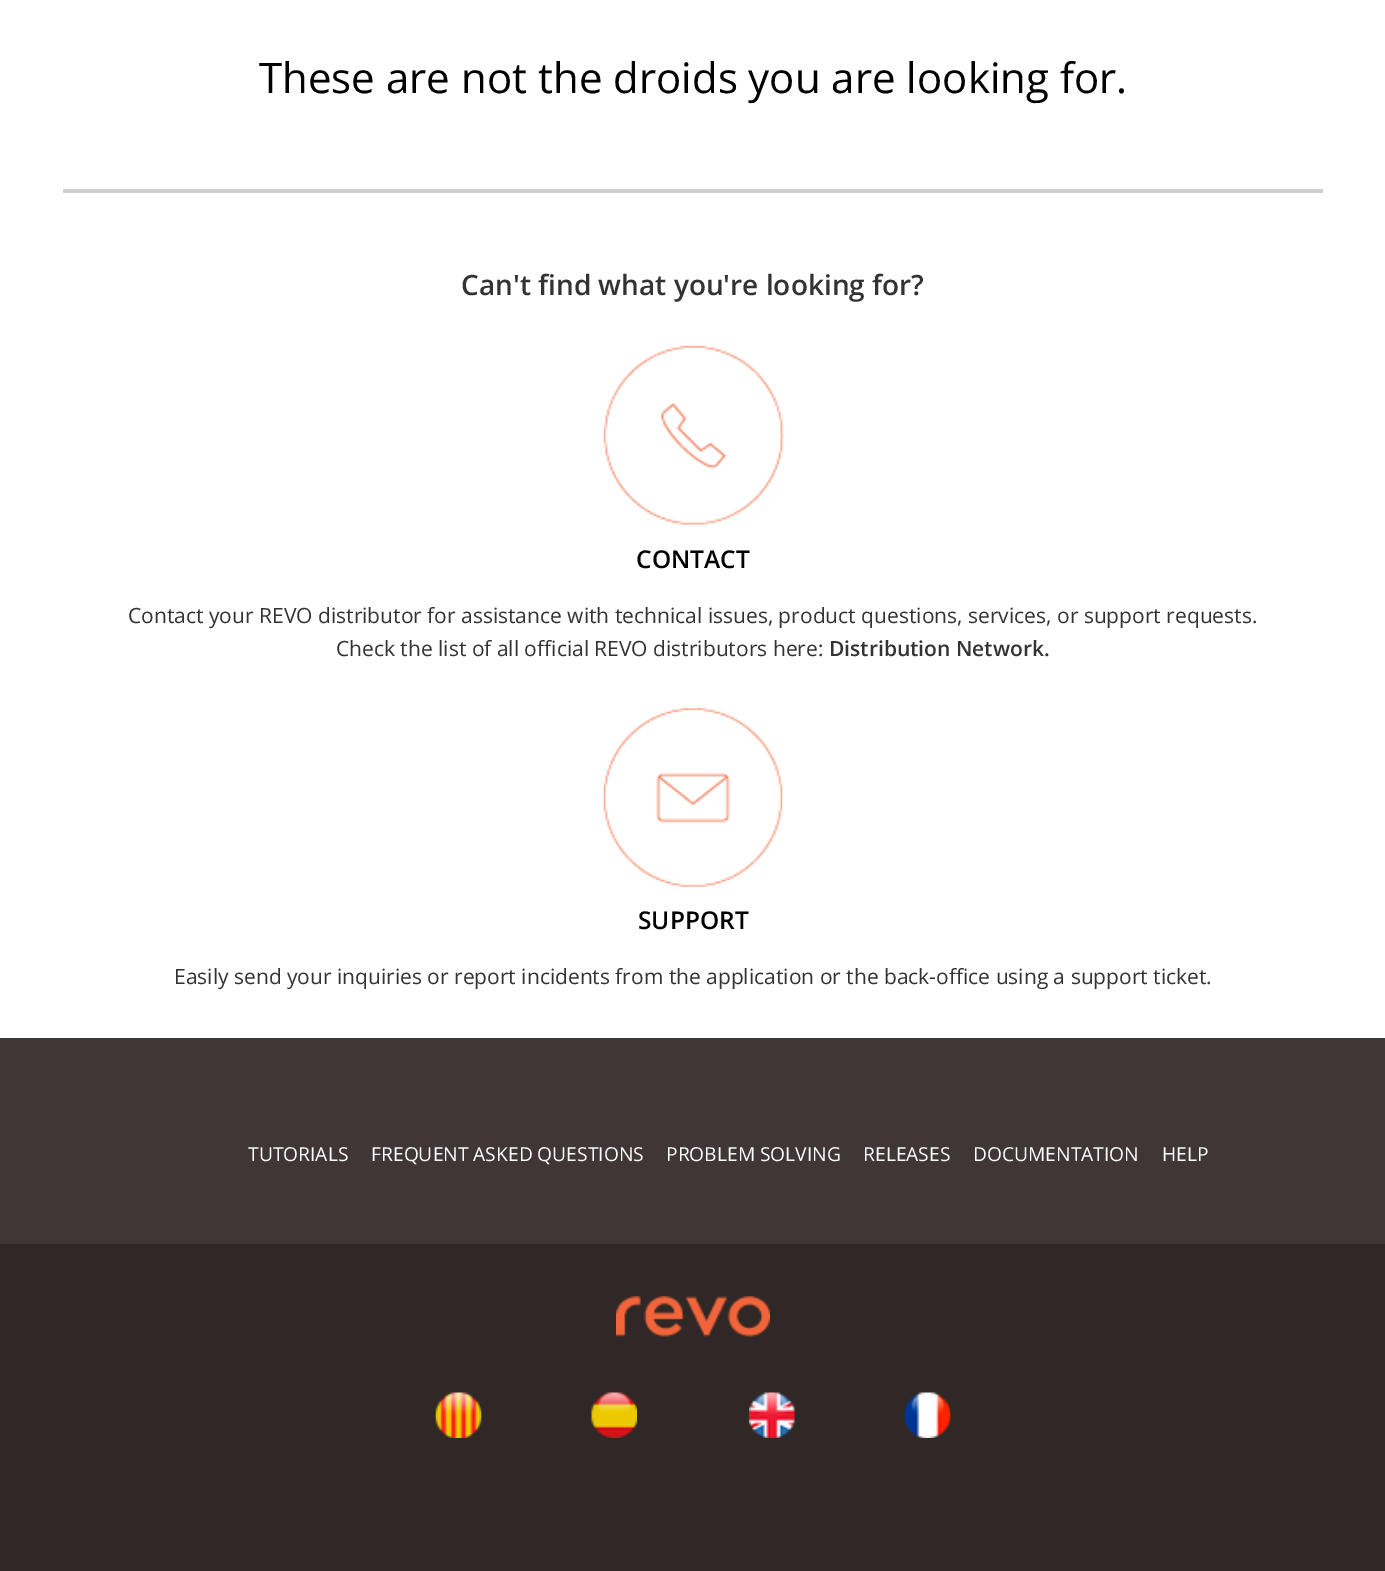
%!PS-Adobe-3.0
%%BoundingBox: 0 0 1385 1571
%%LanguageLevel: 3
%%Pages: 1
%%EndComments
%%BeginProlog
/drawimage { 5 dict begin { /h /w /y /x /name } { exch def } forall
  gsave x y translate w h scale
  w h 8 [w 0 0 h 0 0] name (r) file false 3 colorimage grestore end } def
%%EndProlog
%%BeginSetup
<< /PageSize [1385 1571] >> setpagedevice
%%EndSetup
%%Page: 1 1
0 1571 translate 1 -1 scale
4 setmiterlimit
1 setgray
0 0 1385 1571 rectfill
0.812 0.804 0.812 setrgbcolor
63 189 1260 4 rectfill
(images/1.raw) 603 346 181 179 drawimage
(images/2.raw) 603 708 180 179 drawimage
0.251 0.212 0.208 setrgbcolor
0 1038 1385 206 rectfill
0.188 0.157 0.149 setrgbcolor
0 1244 1385 327 rectfill
(images/3.raw) 616 1296 154 41 drawimage
(images/4.raw) 435 1392 47 46 drawimage
(images/5.raw) 591 1392 46 46 drawimage
(images/6.raw) 749 1392 46 46 drawimage
(images/7.raw) 904 1392 47 46 drawimage
/OpenSans-Regular [42 0 0 -42 0 0] selectfont
0 setgray
259 93 moveto (These are not the droids you are looking for.) show
/OpenSans-SemiBold [28 0 0 -28 0 0] selectfont
0.2 setgray
461 295 moveto (Can't find what you're looking for?) show
/OpenSans-SemiBold [24.5 0 0 -24.5 0 0] selectfont
0 setgray
636 568 moveto (CONTACT) show
/OpenSans-Regular [21 0 0 -21 0 0] selectfont
0.2 setgray
128 623 moveto (Contact your REVO distributor for assistance with technical issues, product questions, services, or support requests.) show
336 656 moveto (Check the list of all official REVO distributors here:) show
/OpenSans-SemiBold [21 0 0 -21 0 0] selectfont
829 656 moveto (Distribution Network.) show
/OpenSans-SemiBold [24.5 0 0 -24.5 0 0] selectfont
0 setgray
638 929 moveto (SUPPORT) show
/OpenSans-Regular [21 0 0 -21 0 0] selectfont
0.2 setgray
174 984 moveto (Easily send your inquiries or report incidents from the application or the back-office using a support ticket.) show
/OpenSans-Regular [19.25 0 0 -19.25 0 0] selectfont
1 setgray
248 1161 moveto (TUTORIALS) show
371 1161 moveto (FREQUENT ASKED QUESTIONS) show
666 1161 moveto (PROBLEM SOLVING) show
863 1161 moveto (RELEASES) show
973 1161 moveto (DOCUMENTATION) show
1162 1161 moveto (HELP) show
showpage
%%EOF
